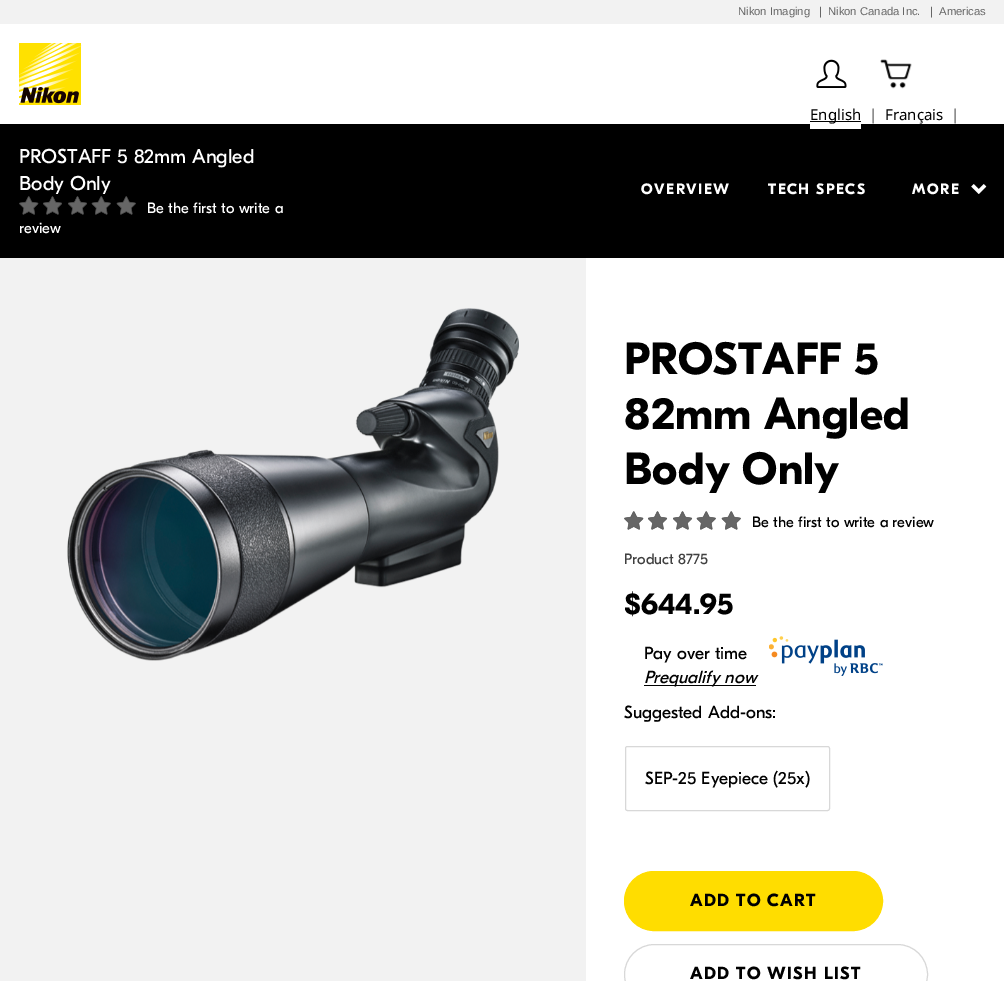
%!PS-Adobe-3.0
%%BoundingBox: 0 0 1004 981
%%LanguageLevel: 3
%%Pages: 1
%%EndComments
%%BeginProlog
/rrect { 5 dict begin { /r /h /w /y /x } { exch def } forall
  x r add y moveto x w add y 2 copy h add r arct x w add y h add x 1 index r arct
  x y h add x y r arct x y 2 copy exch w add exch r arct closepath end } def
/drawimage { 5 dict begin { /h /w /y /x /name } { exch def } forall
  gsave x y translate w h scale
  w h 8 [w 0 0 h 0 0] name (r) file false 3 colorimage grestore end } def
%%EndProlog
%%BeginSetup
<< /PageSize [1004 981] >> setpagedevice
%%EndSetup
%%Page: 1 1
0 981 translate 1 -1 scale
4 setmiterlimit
1 setgray
0 0 1004 981 rectfill
0.949 setgray
0 0 1004 24 rectfill
(images/1.raw) 19 43 63 62 drawimage
(images/2.raw) 816 59 31 29 drawimage
(images/3.raw) 880 59 32 30 drawimage
0 setgray
0 124 1004 134 rectfill
1 setgray
810 124 51 5 rectfill
0 setgray
810 121 51 1 rectfill
(images/4.raw) 19 196 20 19 drawimage
(images/5.raw) 43 196 19 19 drawimage
(images/5.raw) 68 196 19 19 drawimage
(images/6.raw) 91 196 20 19 drawimage
(images/6.raw) 116 196 20 19 drawimage
(images/7.raw) 971 184 16 10 drawimage
0.949 setgray
0 258 586 723 rectfill
(images/8.raw) 67 308 452 353 drawimage
(images/9.raw) 624 511 20 19 drawimage
(images/10.raw) 648 511 20 19 drawimage
(images/10.raw) 673 511 20 19 drawimage
(images/11.raw) 696 511 20 19 drawimage
(images/11.raw) 721 511 20 19 drawimage
0 setgray
644 685 112 1 rectfill
(images/12.raw) 769 636 114 40 drawimage
0.847 setgray
625.5 746.5 204 64 2 rrect stroke
1 0.867 0 setrgbcolor
624.5 871.5 258 59 29.5 rrect gsave fill grestore
stroke
0.847 setgray
624.5 944.5 303 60 30 rrect stroke
/LiberationSans-Regular [11.25 0 0 -11.25 0 0] selectfont
0.4 setgray
738 15 moveto (Nikon Imaging) show
819 15 moveto (|) show
828 15 moveto (Nikon Canada Inc.) show
930 15 moveto (|) show
939 15 moveto (Americas) show
/NotoSans-Regular [15 0 0 -15 0 0] selectfont
0 setgray
810 120 moveto (English) show
0.4 setgray
869 120 moveto (|) show
0 setgray
885 120 moveto (Français) show
0.4 setgray
951 120 moveto (|) show
/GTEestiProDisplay-Regular [20 0 0 -20 0 0] selectfont
1 setgray
19 163 moveto (PROSTAFF 5 82mm Angled) show
19 190 moveto (Body Only) show
/GTEestiProDisplay-Regular [15 0 0 -15 0 0] selectfont
147 213 moveto (Be the first to write a) show
19 233 moveto (review) show
/GTEestiProDisplay-Bold [15 0 0 -15 0 0] selectfont
641 194 moveto 1.5 0 (OVERVIEW) ashow
768 194 moveto 1.5 0 (TECH SPECS) ashow
912 194 moveto 1.5 0 (MORE) ashow
/GTEestiProDisplay-Bold [45 0 0 -45 0 0] selectfont
0 setgray
624 374 moveto 0.25 0 (PROSTAFF 5) ashow
624 429 moveto 0.25 0 (82mm Angled) ashow
624 484 moveto 0.25 0 (Body Only) ashow
/GTEestiProDisplay-Regular [15 0 0 -15 0 0] selectfont
752 527 moveto (Be the first to write a review) show
0.251 setgray
624 564 moveto (Product 8775) show
/GTEestiProDisplay-Bold [30 0 0 -30 0 0] selectfont
0 setgray
624 614 moveto ($644.95) show
/GTEestiProDisplay-Regular [17.5 0 0 -17.5 0 0] selectfont
644 659 moveto (Pay over time) show
/GTEestiProDisplay-Italic [17.5 0 0 -17.5 0 0] selectfont
644 683 moveto (Prequalify now) show
/GTEestiProDisplay-Regular [17.5 0 0 -17.5 0 0] selectfont
624 718 moveto (Suggested Add-ons:) show
645 784 moveto (SEP-25 Eyepiece \(25x\)) show
/GTEestiProDisplay-Bold [17.5 0 0 -17.5 0 0] selectfont
690 906 moveto 1.25 0 (ADD TO CART) ashow
690 979 moveto 1.25 0 (ADD TO WISH LIST) ashow
showpage
%%EOF
